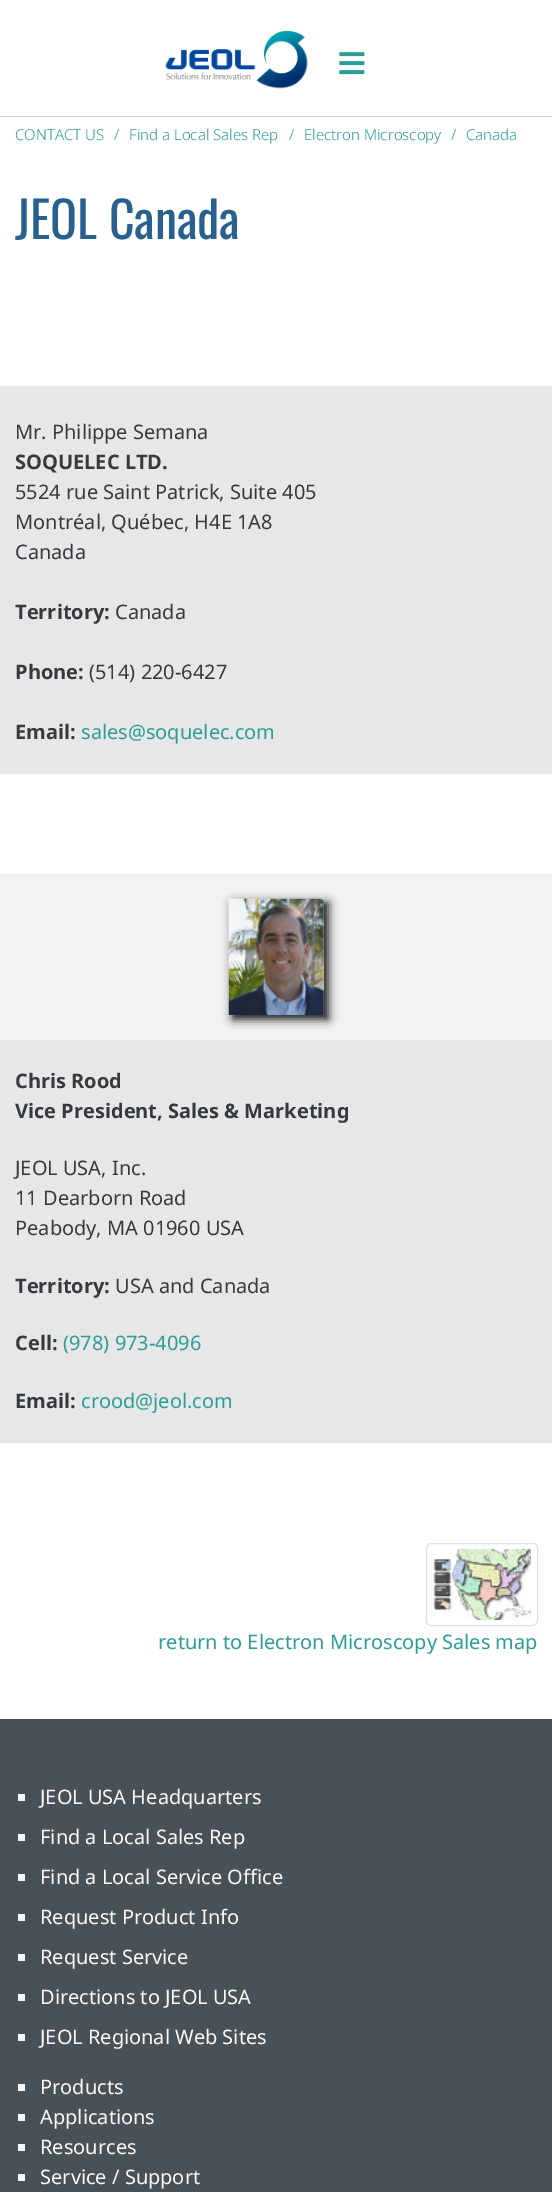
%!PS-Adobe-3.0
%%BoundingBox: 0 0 552 2192
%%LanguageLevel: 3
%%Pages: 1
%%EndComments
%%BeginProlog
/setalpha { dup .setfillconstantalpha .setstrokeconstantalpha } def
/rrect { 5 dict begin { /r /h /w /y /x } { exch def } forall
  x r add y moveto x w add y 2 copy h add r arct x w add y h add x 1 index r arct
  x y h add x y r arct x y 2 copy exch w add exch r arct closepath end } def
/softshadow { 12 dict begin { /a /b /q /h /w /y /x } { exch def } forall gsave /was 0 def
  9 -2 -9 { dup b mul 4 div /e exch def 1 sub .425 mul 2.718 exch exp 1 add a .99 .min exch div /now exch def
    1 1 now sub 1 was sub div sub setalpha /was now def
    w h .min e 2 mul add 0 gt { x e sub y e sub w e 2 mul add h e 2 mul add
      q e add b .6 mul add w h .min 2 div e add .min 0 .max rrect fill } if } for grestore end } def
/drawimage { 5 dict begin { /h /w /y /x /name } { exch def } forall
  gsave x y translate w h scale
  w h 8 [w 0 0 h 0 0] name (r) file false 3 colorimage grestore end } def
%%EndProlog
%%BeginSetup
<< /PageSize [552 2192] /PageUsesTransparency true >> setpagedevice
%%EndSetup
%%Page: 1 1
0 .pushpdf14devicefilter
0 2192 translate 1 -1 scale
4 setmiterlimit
1 setgray
0 0 552 2192 rectfill
0.8 setgray
0 116 552 1 rectfill
(images/1.raw) 165 30 143 59 drawimage
(images/2.raw) 339 52 26 23 drawimage
0.906 setgray
0 386 552 388 rectfill
0.949 setgray
0 874 552 166 rectfill
0 setgray
233 903 95 116 0 5 1 softshadow
(images/3.raw) 228 898 96 117 drawimage
0.906 setgray
0 1040 552 403 rectfill
0.871 0.886 0.902 setrgbcolor
426.5 1543.5 111 82 4.5 rrect stroke
(images/4.raw) 433 1548 99 72 drawimage
0.286 0.318 0.341 setrgbcolor
0 1719 552 473 rectfill
0.973 0.976 0.98 setrgbcolor
18 1794 7 7 rectfill
18 1834 7 7 rectfill
18 1874 7 7 rectfill
18 1914 7 7 rectfill
18 1954 7 7 rectfill
18 1994 7 7 rectfill
18 2034 7 7 rectfill
18 2084 7 7 rectfill
18 2114 7 7 rectfill
18 2144 7 7 rectfill
18 2174 7 7 rectfill
/NotoSans-Light [15 0 0 -15 0 0] selectfont
0.165 0.616 0.592 setrgbcolor
15 140 moveto (CONTACT US) show
114 140 moveto (/) show
129 140 moveto (Find a Local Sales Rep) show
289 140 moveto (/) show
304 140 moveto (Electron Microscopy) show
451 140 moveto (/) show
466 140 moveto (Canada) show
/Oswald-Regular [50 0 0 -50 0 0] selectfont
0.157 0.376 0.565 setrgbcolor
15 239 moveto (JEOL Canada) show
/NotoSans-Regular [20 0 0 -20 0 0] selectfont
0.204 0.227 0.251 setrgbcolor
15 439 moveto (Mr. Philippe Semana) show
/NotoSans-Bold [20 0 0 -20 0 0] selectfont
15 469 moveto (SOQUELEC LTD.) show
/NotoSans-Regular [20 0 0 -20 0 0] selectfont
15 499 moveto (5524 rue Saint Patrick, Suite 405) show
15 529 moveto (Montréal, Québec, H4E 1A8) show
15 559 moveto (Canada) show
/NotoSans-Bold [20 0 0 -20 0 0] selectfont
15 619 moveto (Territory:) show
/NotoSans-Regular [20 0 0 -20 0 0] selectfont
115 619 moveto (Canada) show
/NotoSans-Bold [20 0 0 -20 0 0] selectfont
15 679 moveto (Phone:) show
/NotoSans-Regular [20 0 0 -20 0 0] selectfont
89 679 moveto (\(514\) 220-6427) show
/NotoSans-Bold [20 0 0 -20 0 0] selectfont
15 739 moveto (Email:) show
/NotoSans-Regular [20 0 0 -20 0 0] selectfont
0.165 0.616 0.592 setrgbcolor
81 739 moveto (sales@soquelec.com) show
/NotoSans-Bold [20 0 0 -20 0 0] selectfont
0.204 0.227 0.251 setrgbcolor
15 1088 moveto (Chris Rood) show
15 1118 moveto (Vice President, Sales & Marketing) show
/NotoSans-Regular [20 0 0 -20 0 0] selectfont
15 1175 moveto (JEOL USA, Inc.) show
15 1205 moveto (11 Dearborn Road) show
15 1235 moveto (Peabody, MA 01960 USA) show
/NotoSans-Bold [20 0 0 -20 0 0] selectfont
15 1293 moveto (Territory:) show
/NotoSans-Regular [20 0 0 -20 0 0] selectfont
115 1293 moveto (USA and Canada) show
/NotoSans-Bold [20 0 0 -20 0 0] selectfont
15 1350 moveto (Cell:) show
/NotoSans-Regular [20 0 0 -20 0 0] selectfont
0.165 0.616 0.592 setrgbcolor
63 1350 moveto (\(978\) 973-4096) show
/NotoSans-Bold [20 0 0 -20 0 0] selectfont
0.204 0.227 0.251 setrgbcolor
15 1408 moveto (Email:) show
/NotoSans-Regular [20 0 0 -20 0 0] selectfont
0.165 0.616 0.592 setrgbcolor
81 1408 moveto (crood@jeol.com) show
158 1649 moveto (return to Electron Microscopy Sales map) show
0.973 0.976 0.98 setrgbcolor
40 1804 moveto (JEOL USA Headquarters) show
40 1844 moveto (Find a Local Sales Rep) show
40 1884 moveto (Find a Local Service Office) show
40 1924 moveto (Request Product Info) show
40 1964 moveto (Request Service) show
40 2004 moveto (Directions to JEOL USA) show
40 2044 moveto (JEOL Regional Web Sites) show
40 2094 moveto (Products) show
40 2124 moveto (Applications) show
40 2154 moveto (Resources) show
40 2184 moveto (Service / Support) show
.poppdf14devicefilter showpage
%%EOF
